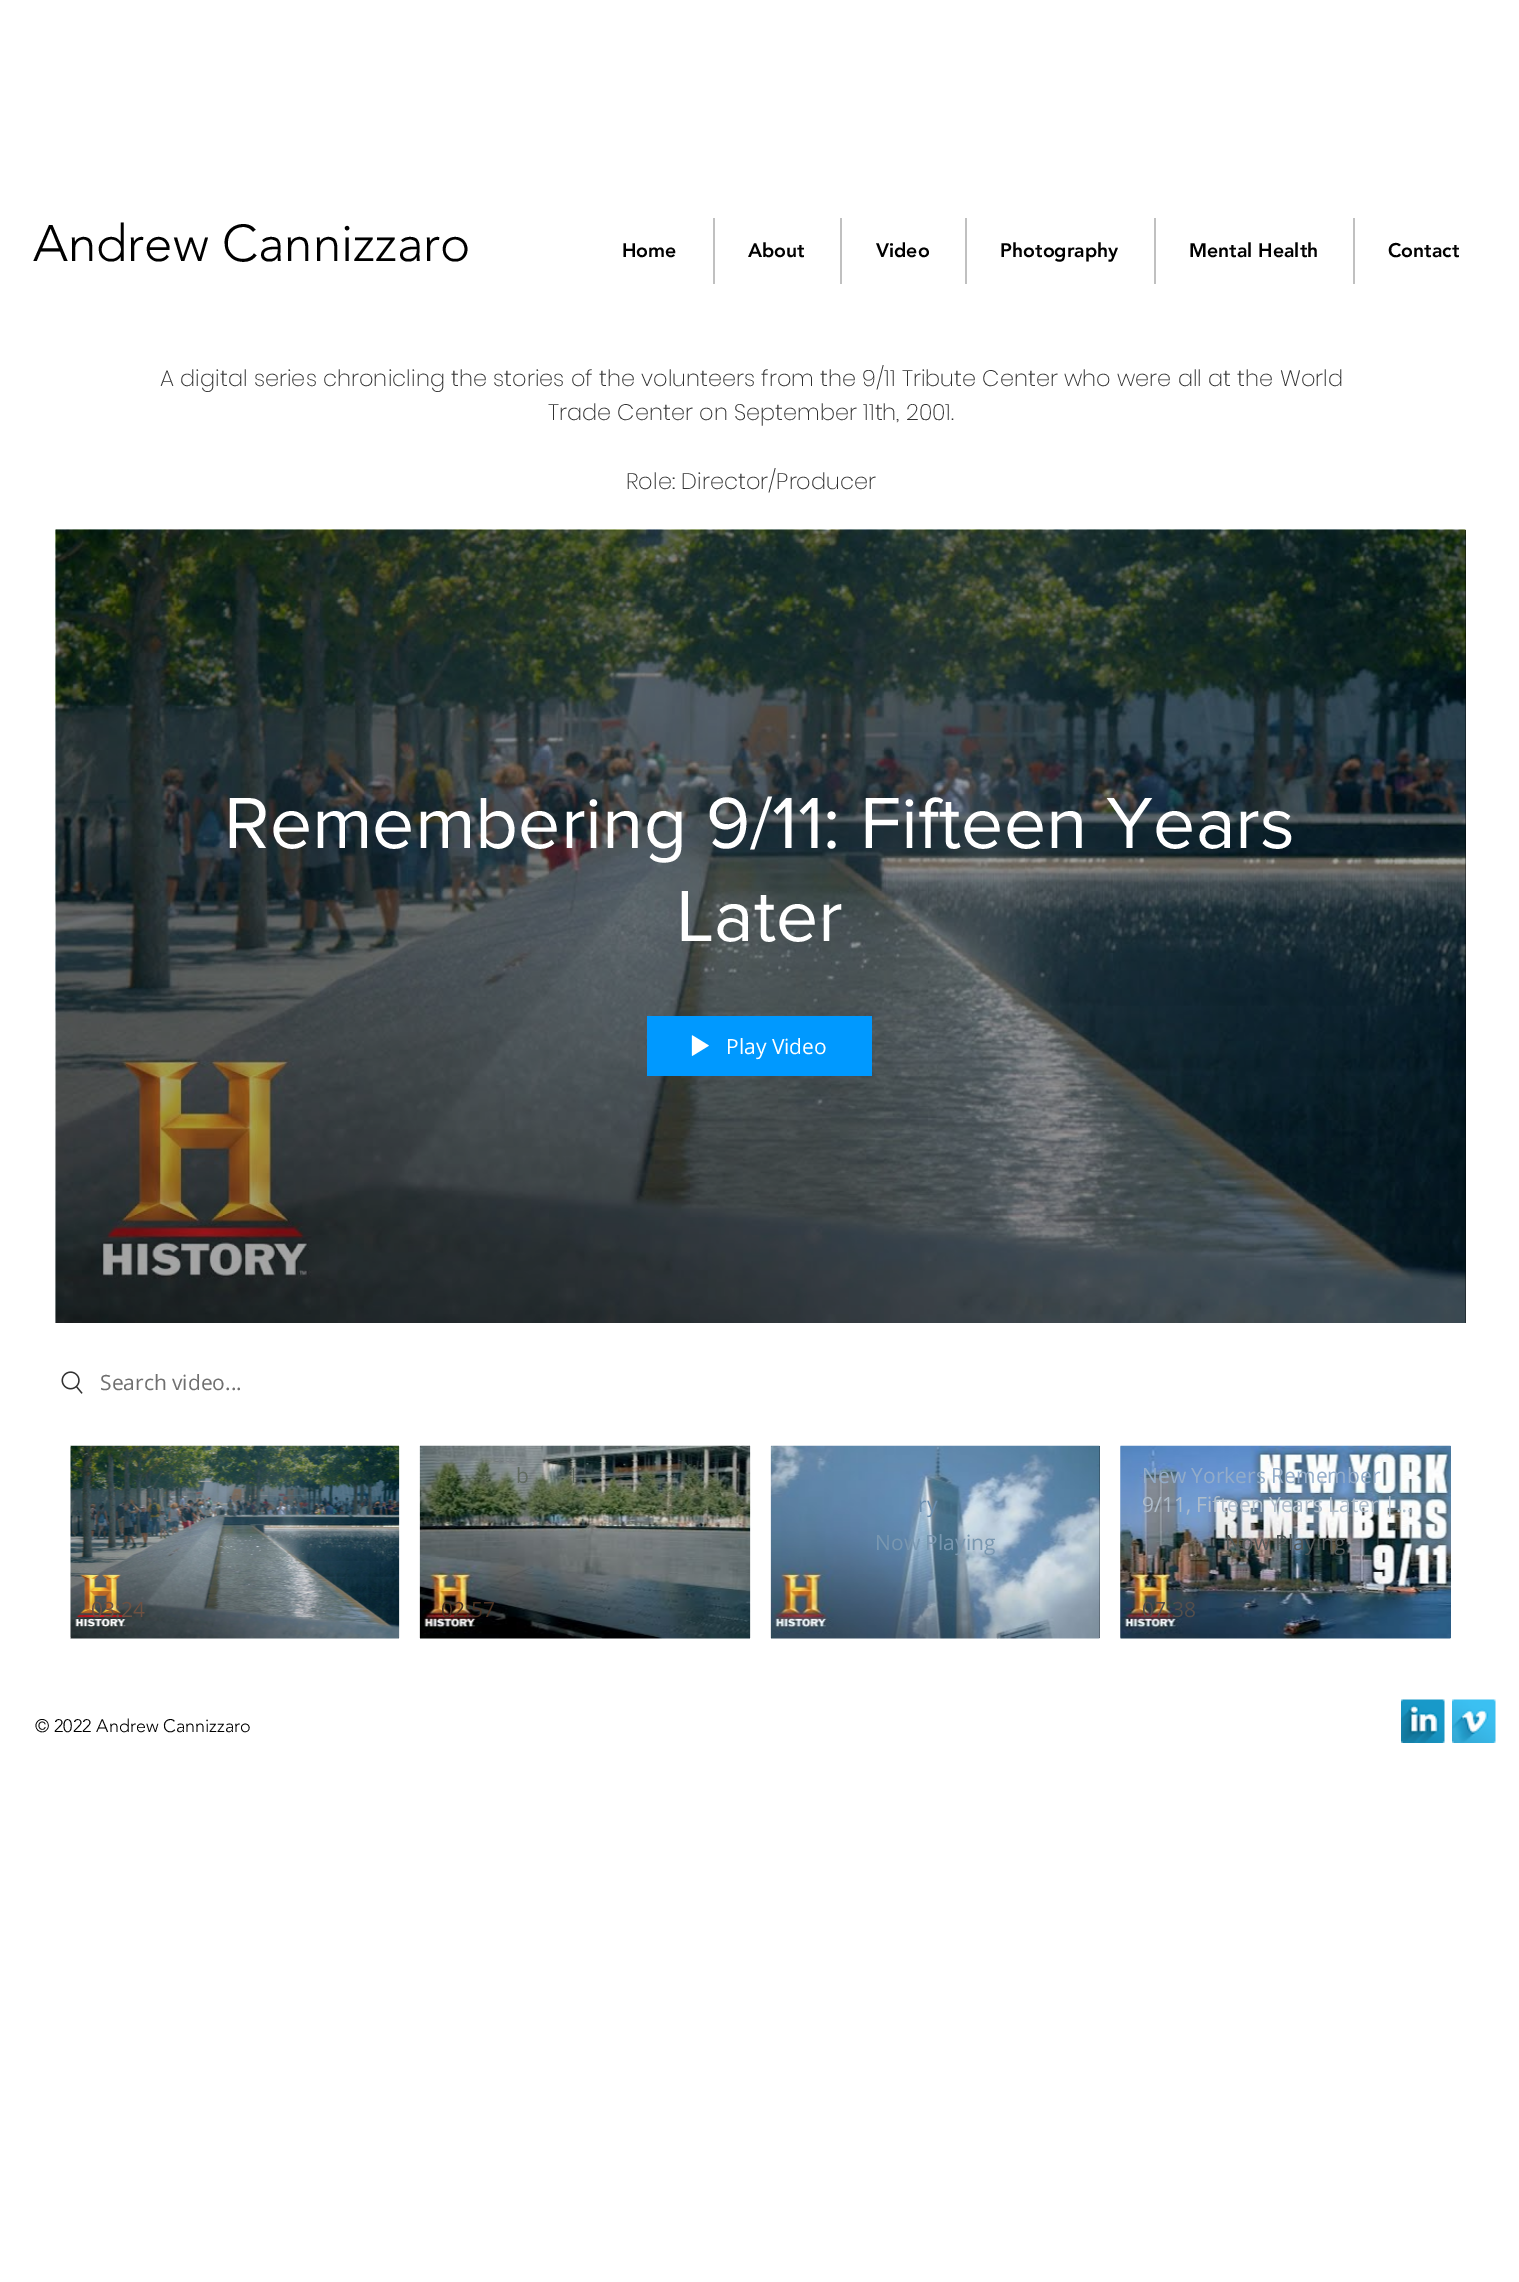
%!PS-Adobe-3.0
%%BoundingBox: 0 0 1519 2282
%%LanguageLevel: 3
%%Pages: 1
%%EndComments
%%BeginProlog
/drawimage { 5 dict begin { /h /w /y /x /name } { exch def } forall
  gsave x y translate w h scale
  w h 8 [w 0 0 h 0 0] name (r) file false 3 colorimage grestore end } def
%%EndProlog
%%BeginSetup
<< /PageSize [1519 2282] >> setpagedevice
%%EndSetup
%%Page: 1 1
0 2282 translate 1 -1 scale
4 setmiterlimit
1 setgray
0 0 1519 2282 rectfill
0.753 setgray
713 218 2 66 rectfill
840 218 2 66 rectfill
965 218 2 66 rectfill
1154 218 2 66 rectfill
1353 218 2 66 rectfill
0 setgray
1465 530 1 793 rectfill
(images/1.raw) 55 529 1411 794 drawimage
(images/2.raw) 55 529 1411 794 drawimage
0 0.6 1 setrgbcolor
647 1016 225 60 rectfill
(images/3.raw) 691 1035 18 21 drawimage
(images/4.raw) 61 1371 22 23 drawimage
(images/5.raw) 420 1445 330 194 drawimage
(images/6.raw) 419 1446 332 192 drawimage
0 setgray
771 1446 329 192 rectfill
(images/7.raw) 771 1445 329 194 drawimage
(images/8.raw) 770 1446 330 192 drawimage
(images/9.raw) 1120 1445 331 194 drawimage
(images/10.raw) 1120 1446 331 192 drawimage
(images/11.raw) 70 1445 329 194 drawimage
(images/12.raw) 71 1446 329 192 drawimage
(images/13.raw) 1401 1699 44 44 drawimage
(images/14.raw) 1452 1699 44 44 drawimage
/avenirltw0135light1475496-Light [51 0 0 -51 0 0] selectfont
33 261 moveto (Andrew Cannizzaro) show
/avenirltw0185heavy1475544-Black [19.5 0 0 -19.5 0 0] selectfont
622 257 moveto (Home) show
748 257 moveto (About) show
876 257 moveto (Video) show
1000 257 moveto (Photography) show
1189 257 moveto (Mental Health) show
1388 257 moveto (Contact) show
/Poppins-ExtraLight [22.5 0 0 -22.5 0 0] selectfont
0.192 setgray
160 386 moveto (A digital series chronicling the stories of the volunteers from the 9/11 Tribute Center who were all at the World) show
548 420 moveto (Trade Center on September 11th, 2001.) show
626 489 moveto (Role: Director/Producer) show
/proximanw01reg-Regular [75 0 0 -75 0 0] selectfont
1 setgray
224 848 moveto (Remembering 9/11: Fifteen Years) show
676 941 moveto (Later) show
/OpenSans-Regular [21 0 0 -21 0 0] selectfont
726 1054 moveto (Play Video) show
0.435 setgray
100 1390 moveto (Search video...) show
0.376 0.416 0.373 setrgbcolor
516 1483 moveto (b) show
567 1483 moveto (1) show
0.302 0.2 0.137 setrgbcolor
441 1617 moveto (02:57) show
0.408 0.549 0.682 setrgbcolor
918 1512 moveto (ry) show
0.475 0.592 0.69 setrgbcolor
875 1550 moveto (Now Playing) show
0.576 0.675 0.788 setrgbcolor
1142 1483 moveto (New Yorkers Remember) show
0.686 0.741 0.796 setrgbcolor
1142 1512 moveto (9/11, Fifteen Years Later |…) show
0.322 0.345 0.349 setrgbcolor
1225 1550 moveto (Now Playing) show
0.329 0.306 0.294 setrgbcolor
1142 1617 moveto (07:38) show
0.431 0.318 0.259 setrgbcolor
91 1617 moveto (03:24) show
/avenirltw0135light1475496-Light [18 0 0 -18 0 0] selectfont
0 setgray
35 1732 moveto (© 2022 Andrew Cannizzaro) show
showpage
%%EOF
